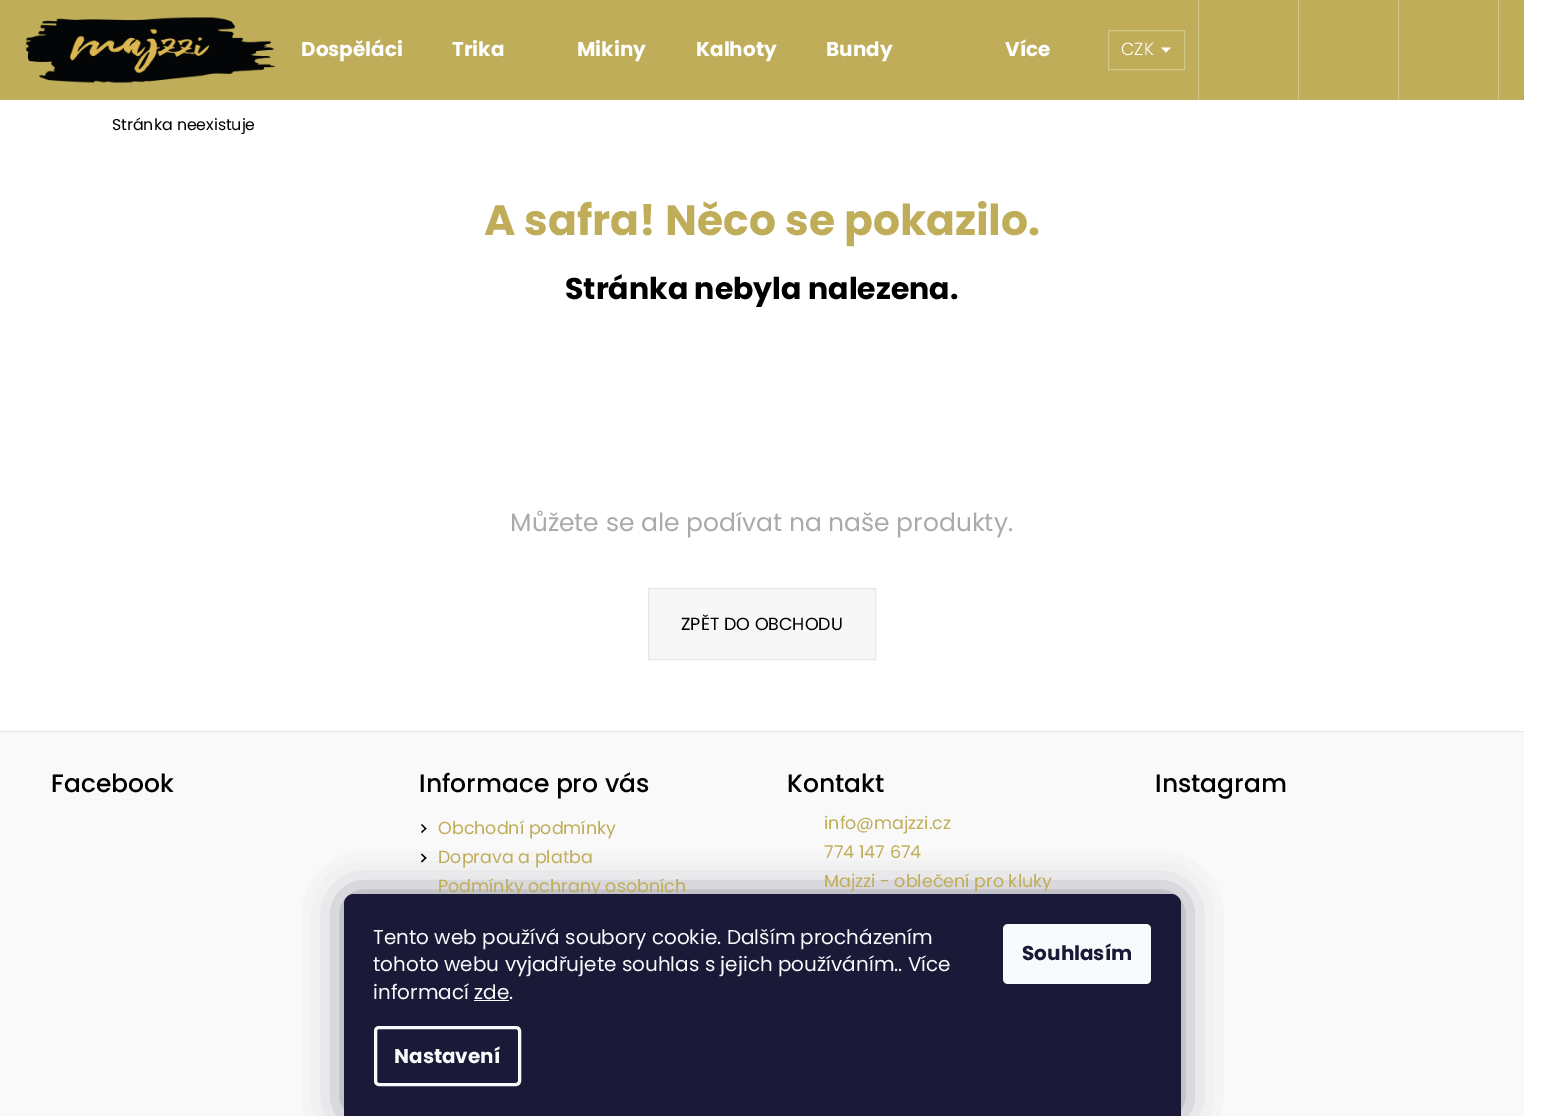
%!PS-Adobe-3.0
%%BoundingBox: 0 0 1542 1116
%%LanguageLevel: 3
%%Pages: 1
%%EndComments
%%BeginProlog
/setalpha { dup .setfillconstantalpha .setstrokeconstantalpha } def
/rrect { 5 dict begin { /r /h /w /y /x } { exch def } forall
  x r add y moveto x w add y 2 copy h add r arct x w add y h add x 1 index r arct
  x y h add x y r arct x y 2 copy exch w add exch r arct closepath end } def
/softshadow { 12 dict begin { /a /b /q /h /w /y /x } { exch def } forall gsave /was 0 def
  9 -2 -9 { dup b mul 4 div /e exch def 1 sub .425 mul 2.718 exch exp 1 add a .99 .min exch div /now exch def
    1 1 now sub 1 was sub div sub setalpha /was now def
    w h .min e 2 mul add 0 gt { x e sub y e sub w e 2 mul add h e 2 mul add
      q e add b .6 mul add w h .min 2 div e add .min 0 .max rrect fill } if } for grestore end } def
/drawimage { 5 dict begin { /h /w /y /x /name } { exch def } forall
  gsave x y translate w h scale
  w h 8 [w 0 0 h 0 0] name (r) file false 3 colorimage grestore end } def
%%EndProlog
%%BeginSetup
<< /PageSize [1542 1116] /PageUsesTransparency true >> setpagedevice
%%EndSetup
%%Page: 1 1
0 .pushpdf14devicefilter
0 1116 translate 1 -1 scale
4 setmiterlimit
1 setgray
0 0 1542 1116 rectfill
0.749 0.678 0.349 setrgbcolor
0 0 1524 100 rectfill
(images/1.raw) 26 17 249 66 drawimage
0.824 0.776 0.545 setrgbcolor
1498 0 1 100 rectfill
1108.5 30.5 76 39 rectstroke
1 setgray
newpath 1161 47.5 moveto 1171 47.5 lineto 1166 52.5 lineto closepath fill
0.824 0.776 0.545 setrgbcolor
1198 0 1 100 rectfill
1298 0 1 100 rectfill
1398 0 1 100 rectfill
0.969 setgray
newpath 648.5 588.5 moveto 875.5 588.5 lineto 875.5 659.5 lineto 648.5 659.5 lineto closepath gsave fill grestore
0.902 setgray
stroke
0.976 setgray
0 732 1524 384 rectfill
0.902 setgray
0 731 1524 1 rectfill
0 setgray
newpath 421 825 moveto 422 824 lineto 426.5 828.5 lineto 425.5 829.5 lineto closepath fill
newpath 421 832 moveto 425.5 828 lineto 426.5 828.5 lineto 422 833 lineto closepath fill
newpath 421 854.5 moveto 422 853.5 lineto 426.5 858 lineto 425.5 859 lineto closepath fill
newpath 421 861.5 moveto 425.5 857 lineto 426.5 858 lineto 422 862.5 lineto closepath fill
0.106 0.098 0.224 setrgbcolor
344 894 837 222 10 19 0.5 softshadow
/Poppins-Bold [20 0 0 -20 0 0] selectfont
1 setgray
301 56 moveto (Dospěláci) show
452 56 moveto (Trika) show
577 56 moveto (Mikiny) show
696 56 moveto (Kalhoty) show
826 56 moveto (Bundy) show
1005 56 moveto (Více) show
/Poppins-Light [17.5 0 0 -17.5 0 0] selectfont
1121 55 moveto (CZK) show
/Poppins-Regular [15.75 0 0 -15.75 0 0] selectfont
0 setgray
112 130 moveto (Stránka neexistuje) show
/Poppins-Bold [42.5 0 0 -42.5 0 0] selectfont
0.749 0.678 0.349 setrgbcolor
484 235 moveto (A safra! Něco se pokazilo.) show
/Poppins-Bold [30 0 0 -30 0 0] selectfont
0 setgray
565 299 moveto (Stránka nebyla nalezena.) show
/Poppins-Regular [25 0 0 -25 0 0] selectfont
0.667 setgray
510 531 moveto (Můžete se ale podívat na naše produkty.) show
/Poppins-Regular [17.5 0 0 -17.5 0 0] selectfont
0 setgray
681 630 moveto (ZPĚT DO OBCHODU) show
/Poppins-Medium [25 0 0 -25 0 0] selectfont
51 792 moveto (Facebook) show
419 792 moveto (Informace pro vás) show
/Poppins-Regular [17.5 0 0 -17.5 0 0] selectfont
0.749 0.678 0.349 setrgbcolor
438 834 moveto (Obchodní podmínky) show
438 863 moveto (Doprava a platba) show
438 892 moveto (Podmínky ochrany osobních) show
/Poppins-Medium [25 0 0 -25 0 0] selectfont
0 setgray
787 792 moveto (Kontakt) show
/Poppins-Regular [17.5 0 0 -17.5 0 0] selectfont
0.749 0.678 0.349 setrgbcolor
824 829 moveto (info@majzzi.cz) show
824 858 moveto (774 147 674) show
824 887 moveto (Majzzi - oblečení pro kluky) show
/Poppins-Medium [25 0 0 -25 0 0] selectfont
0 setgray
1155 792 moveto (Instagram) show
0.102 0.098 0.216 setrgbcolor
newpath 354 894 moveto 1171 894 lineto 1176.5 894 1181 898.5 1181 904 curveto 1181 1116 lineto 344 1116 lineto 344 904 lineto 344 898.5 348.5 894 354 894 curveto closepath fill
/Poppins-Regular [20 0 0 -20 0 0] selectfont
0.973 0.98 0.984 setrgbcolor
373 944 moveto (Tento web používá soubory cookie. Dalším procházením) show
373 971 moveto (tohoto webu vyjadřujete souhlas s jejich používáním.. Více) show
373 999 moveto (informací zde.) show
474 1000 35 1 rectfill
3 setlinewidth
375.5 1027.5 144 57 3.5 rrect stroke
/Poppins-Bold [20 0 0 -20 0 0] selectfont
394 1063 moveto (Nastavení) show
1003 924 148 60 5 rrect fill
0.102 0.098 0.216 setrgbcolor
1022 960 moveto (Souhlasím) show
.poppdf14devicefilter showpage
%%EOF
